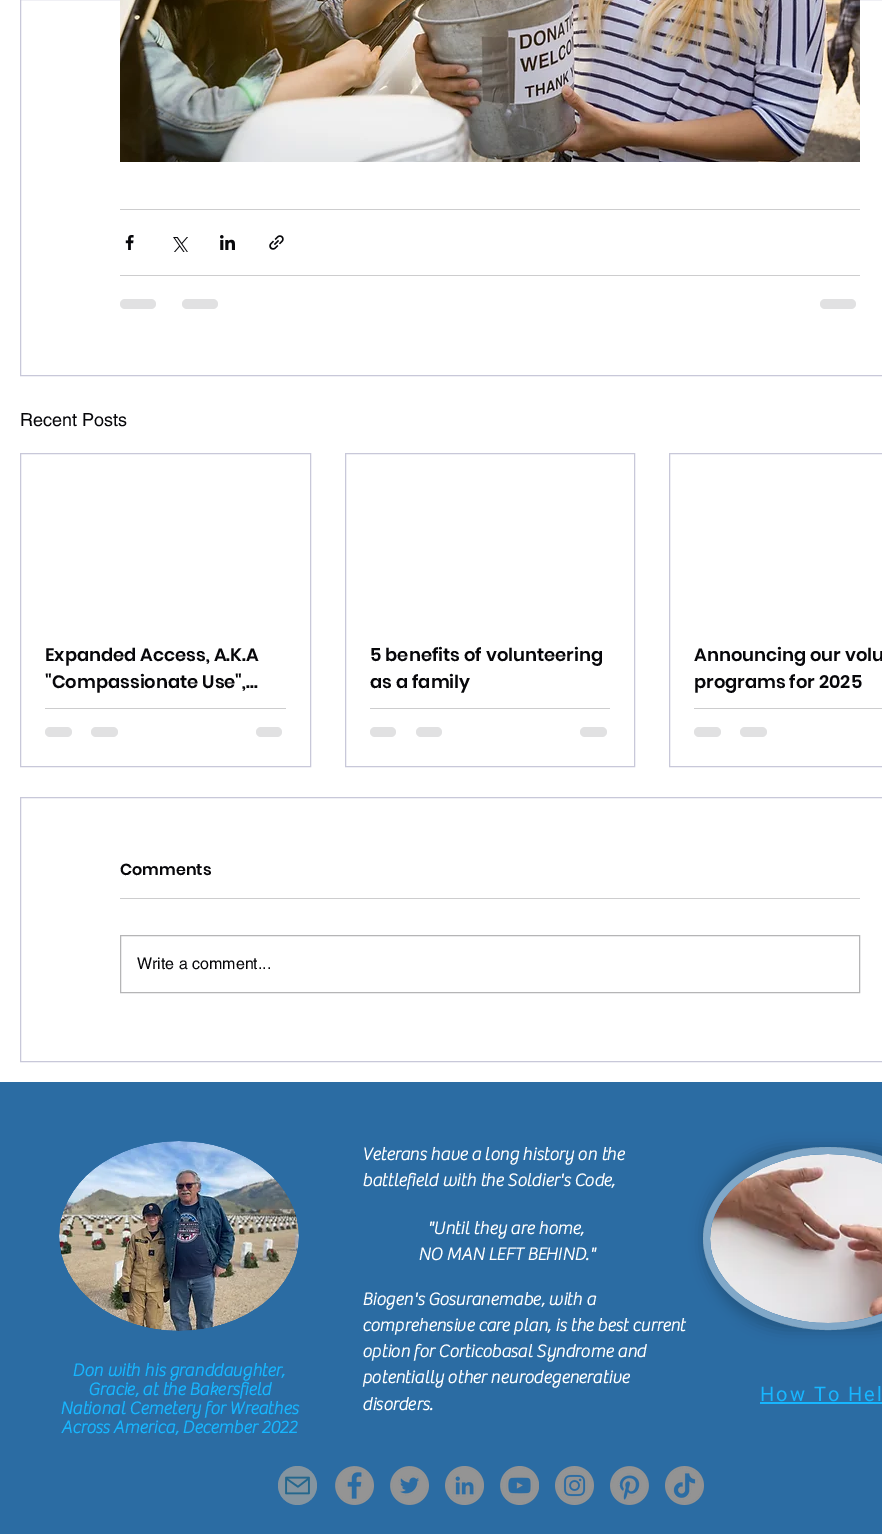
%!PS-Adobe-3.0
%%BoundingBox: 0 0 882 1534
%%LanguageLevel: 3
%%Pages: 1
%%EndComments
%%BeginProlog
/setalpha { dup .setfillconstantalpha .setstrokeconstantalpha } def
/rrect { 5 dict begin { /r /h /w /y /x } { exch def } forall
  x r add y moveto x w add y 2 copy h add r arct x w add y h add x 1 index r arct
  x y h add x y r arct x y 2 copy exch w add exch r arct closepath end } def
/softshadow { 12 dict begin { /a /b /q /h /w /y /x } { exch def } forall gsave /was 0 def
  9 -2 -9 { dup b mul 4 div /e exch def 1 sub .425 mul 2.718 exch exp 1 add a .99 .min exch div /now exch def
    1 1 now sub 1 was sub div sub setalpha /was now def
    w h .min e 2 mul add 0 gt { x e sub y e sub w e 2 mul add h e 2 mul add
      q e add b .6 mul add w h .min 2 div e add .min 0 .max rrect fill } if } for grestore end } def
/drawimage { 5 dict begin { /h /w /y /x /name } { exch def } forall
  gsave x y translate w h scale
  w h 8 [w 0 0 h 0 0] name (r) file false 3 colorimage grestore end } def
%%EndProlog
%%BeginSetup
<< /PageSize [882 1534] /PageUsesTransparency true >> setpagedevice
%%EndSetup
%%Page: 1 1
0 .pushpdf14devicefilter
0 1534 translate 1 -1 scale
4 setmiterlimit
1 setgray
0 0 882 1534 rectfill
0.784 0.784 0.851 setrgbcolor
20.5 -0.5 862 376 rectstroke
(images/1.raw) 120 0 740 162 drawimage
0.804 0.804 0.808 setrgbcolor
120 209 740 1 rectfill
(images/2.raw) 125 235 9 15 drawimage
(images/3.raw) 173 237 15 15 drawimage
(images/4.raw) 220 235 15 15 drawimage
(images/5.raw) 269 235 15 15 drawimage
120 275 740 1 rectfill
0.882 0.882 0.886 setrgbcolor
120 299 36 10 5 rrect fill
182 299 36 10 5 rrect fill
820 299 36 10 5 rrect fill
0.784 0.784 0.851 setrgbcolor
20.5 453.5 290 313 rectstroke
0.804 0.804 0.808 setrgbcolor
45 708 241 1 rectfill
0.882 0.882 0.886 setrgbcolor
45 727 27 10 5 rrect fill
91 727 27 10 5 rrect fill
256 727 26 10 5 rrect fill
0.784 0.784 0.851 setrgbcolor
345.5 453.5 289 313 rectstroke
0.804 0.804 0.808 setrgbcolor
370 708 240 1 rectfill
0.882 0.882 0.886 setrgbcolor
370 727 26 10 5 rrect fill
416 727 26 10 5 rrect fill
580 727 27 10 5 rrect fill
0.784 0.784 0.851 setrgbcolor
669.5 453.5 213 313 rectstroke
0.804 0.804 0.808 setrgbcolor
694 708 188 1 rectfill
0.882 0.882 0.886 setrgbcolor
694 727 27 10 5 rrect fill
740 727 27 10 5 rrect fill
0.784 0.784 0.851 setrgbcolor
20.5 797.5 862 264 rectstroke
0.804 0.804 0.808 setrgbcolor
120 898 740 1 rectfill
0.71 0.71 0.714 setrgbcolor
120.5 935.5 739 57 rectstroke
0.169 0.424 0.639 setrgbcolor
0 1082 882 452 rectfill
(images/6.raw) 59 1141 240 190 drawimage
gsave
newpath 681 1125 moveto 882 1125 lineto 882 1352 lineto 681 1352 lineto closepath 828 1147 moveto 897 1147 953 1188 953 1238.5 curveto 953 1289 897 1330 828 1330 curveto 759 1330 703 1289 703 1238.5 curveto 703 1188 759 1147 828 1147 curveto closepath eoclip newpath
0 setgray
703 1147 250 183 91.5 7 0.2 softshadow
grestore
0.23 setalpha
1 setgray
newpath 828 1147 moveto 897 1147 953 1188 953 1238.5 curveto 953 1289 897 1330 828 1330 curveto 759 1330 703 1289 703 1238.5 curveto 703 1188 759 1147 828 1147 curveto closepath fill
7 setlinewidth
newpath 828 1150.5 moveto 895 1150.5 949.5 1190 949.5 1238.5 curveto 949.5 1287 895 1326.5 828 1326.5 curveto 761 1326.5 706.5 1287 706.5 1238.5 curveto 706.5 1190 761 1150.5 828 1150.5 curveto closepath stroke
1 setalpha
(images/7.raw) 710 1154 172 169 drawimage
0.09 0.714 1 setrgbcolor
760 1402 122 2 rectfill
0.518 0.58 0.624 setrgbcolor
newpath 297.5 1485.5 19.5 0 360 arc closepath fill
(images/8.raw) 285 1476 25 19 drawimage
(images/9.raw) 335 1466 39 39 drawimage
(images/10.raw) 390 1466 39 39 drawimage
(images/11.raw) 445 1466 39 39 drawimage
(images/12.raw) 500 1466 39 39 drawimage
(images/13.raw) 555 1466 39 39 drawimage
(images/14.raw) 610 1466 39 39 drawimage
(images/15.raw) 665 1466 39 39 drawimage
/helvetica-Regular [18 0 0 -18 0 0] selectfont
0.027 0.027 0.039 setrgbcolor
20 426 moveto (Recent Posts) show
/Poppins-SemiBold [18 0 0 -18 0 0] selectfont
45 661 moveto (Expanded Access, A.K.A) show
45 688 moveto ("Compassionate Use",…) show
370 661 moveto (5 benefits of volunteering) show
370 688 moveto (as a family) show
694 661 moveto (Announcing our volu) show
694 688 moveto (programs for 2025) show
/Poppins-SemiBold [16 0 0 -16 0 0] selectfont
120 875 moveto (Comments) show
/helvetica-Regular [16 0 0 -16 0 0] selectfont
137 969 moveto (Write a comment...) show
/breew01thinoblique-Bold [18 0 0 -18 0 0] selectfont
1 setgray
362 1160 moveto (Veterans have a long history on the) show
362 1186 moveto (battlefield with the Soldier's Code,) show
427 1234 moveto ("Until they are home,) show
418 1260 moveto (NO MAN LEFT BEHIND.") show
0.09 0.714 1 setrgbcolor
72 1376 moveto (Don with his granddaughter,) show
88 1395 moveto (Gracie, at the Bakersfield) show
60 1414 moveto (National Cemetery for Wreathes) show
61 1433 moveto (Across America, December 2022) show
1 setgray
362 1305 moveto (Biogen's Gosuranemabe, with a) show
362 1331 moveto (comprehensive care plan, is the best current) show
362 1357 moveto (option for Corticobasal Syndrome and) show
362 1383 moveto (potentially other neurodegenerative) show
362 1410 moveto (disorders.) show
/Roboto-Regular [20 0 0 -20 0 0] selectfont
0.09 0.714 1 setrgbcolor
760 1401 moveto 2 0 (How To Hel) ashow
.poppdf14devicefilter showpage
%%EOF
